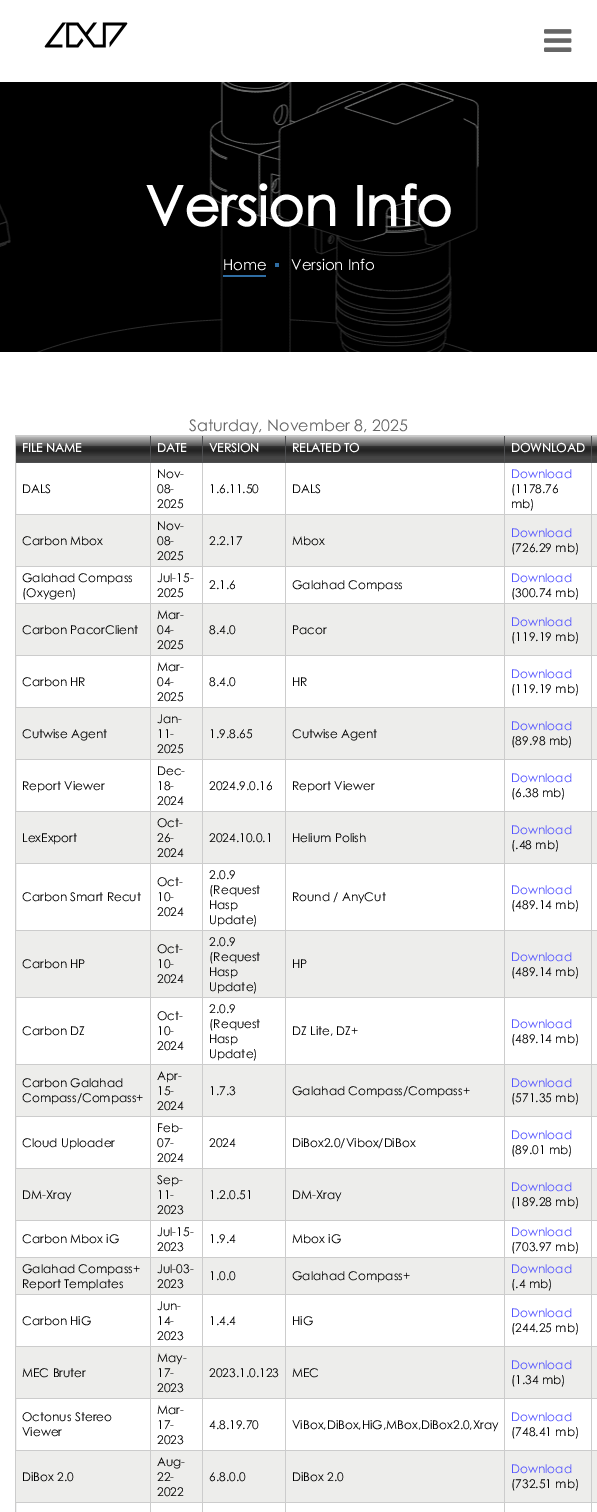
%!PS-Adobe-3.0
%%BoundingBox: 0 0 597 1512
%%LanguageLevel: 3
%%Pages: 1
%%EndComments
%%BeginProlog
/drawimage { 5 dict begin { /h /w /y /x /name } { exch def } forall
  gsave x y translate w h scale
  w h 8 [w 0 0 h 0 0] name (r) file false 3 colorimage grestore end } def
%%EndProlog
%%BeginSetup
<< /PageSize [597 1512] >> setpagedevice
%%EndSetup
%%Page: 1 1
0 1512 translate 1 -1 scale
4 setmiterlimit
1 setgray
0 0 597 1512 rectfill
(images/1.raw) 44 22 84 26 drawimage
(images/2.raw) 544 29 28 23 drawimage
(images/3.raw) 0 82 597 270 drawimage
(images/4.raw) 1 83 478 268 drawimage
0.184 0.427 0.639 setrgbcolor
275 263 4 4 rectfill
223 275 43 2 rectfill
0.8 setgray
15.5 435.5 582 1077 rectstroke
0.267 setgray
16 460 134 2 rectfill
(images/5.raw) 16 436 134 24 drawimage
0.306 0.31 0.318 setrgbcolor
150 436 1 27 rectfill
16 462 135 1 rectfill
0.267 setgray
151 460 51 2 rectfill
(images/6.raw) 151 436 51 24 drawimage
0.306 0.31 0.318 setrgbcolor
202 436 1 27 rectfill
151 462 52 1 rectfill
0.267 setgray
203 460 82 2 rectfill
(images/7.raw) 203 436 82 24 drawimage
0.306 0.31 0.318 setrgbcolor
285 436 1 27 rectfill
203 462 83 1 rectfill
0.267 setgray
286 460 218 2 rectfill
(images/8.raw) 286 436 218 24 drawimage
0.306 0.31 0.318 setrgbcolor
504 436 1 27 rectfill
286 462 219 1 rectfill
0.267 setgray
505 460 86 2 rectfill
(images/9.raw) 505 436 86 24 drawimage
0.306 0.31 0.318 setrgbcolor
591 436 1 27 rectfill
505 462 92 1 rectfill
0.267 setgray
592 456 5 6 rectfill
(images/10.raw) 592 436 5 20 drawimage
0.929 0.929 0.922 setrgbcolor
16 515 581 51 rectfill
16 604 581 51 rectfill
16 708 581 51 rectfill
16 812 581 51 rectfill
16 931 581 66 rectfill
16 1065 581 51 rectfill
16 1169 581 51 rectfill
16 1258 581 36 rectfill
16 1347 581 51 rectfill
16 1451 581 51 rectfill
0.8 setgray
150 463 1 1040 rectfill
16 514 135 1 rectfill
202 463 1 1049 rectfill
151 514 52 1 rectfill
285 463 1 1049 rectfill
203 514 83 1 rectfill
504 463 1 1049 rectfill
286 514 219 1 rectfill
591 463 1 1049 rectfill
505 514 92 1 rectfill
16 566 581 1 rectfill
16 603 581 1 rectfill
16 655 581 1 rectfill
16 707 581 1 rectfill
16 759 581 1 rectfill
16 811 581 1 rectfill
16 863 581 1 rectfill
16 930 581 1 rectfill
16 997 581 1 rectfill
16 1064 581 1 rectfill
16 1116 581 1 rectfill
16 1168 581 1 rectfill
16 1220 581 1 rectfill
16 1257 581 1 rectfill
16 1294 581 1 rectfill
16 1346 581 1 rectfill
16 1398 581 1 rectfill
16 1450 581 1 rectfill
16 1502 581 1 rectfill
150 1503 1 9 rectfill
/CenturyGothic-Bold [55 0 0 -55 0 0] selectfont
1 setgray
145 226 moveto (Version Info) show
/CenturyGothic-Regular [15 0 0 -15 0 0] selectfont
223 270 moveto (Home) show
291 270 moveto (Version Info) show
/CenturyGothic-Regular [16 0 0 -16 0 0] selectfont
0.4 setgray
189 431 moveto (Saturday, November 8, 2025) show
/CenturyGothic-Bold [12 0 0 -12 0 0] selectfont
1 setgray
22 452 moveto (FILE NAME) show
157 452 moveto (DATE) show
209 452 moveto (VERSION) show
292 452 moveto (RELATED TO) show
511 452 moveto (DOWNLOAD) show
/CenturyGothic-Regular [12 0 0 -12 0 0] selectfont
0 setgray
22 493 moveto (DALS) show
157 478 moveto (Nov-) show
157 493 moveto (08-) show
157 508 moveto (2025) show
209 493 moveto (1.6.11.50) show
292 493 moveto (DALS) show
0.333 0.333 1 setrgbcolor
511 478 moveto (Download) show
0 setgray
511 493 moveto (\(1178.76) show
511 508 moveto (mb\)) show
22 545 moveto (Carbon Mbox) show
157 530 moveto (Nov-) show
157 545 moveto (08-) show
157 560 moveto (2025) show
209 545 moveto (2.2.17) show
292 545 moveto (Mbox) show
0.333 0.333 1 setrgbcolor
511 537 moveto (Download) show
0 setgray
511 552 moveto (\(726.29 mb\)) show
22 582 moveto (Galahad Compass) show
22 597 moveto (\(Oxygen\)) show
157 582 moveto (Jul-15-) show
157 597 moveto (2025) show
209 589 moveto (2.1.6) show
292 589 moveto (Galahad Compass) show
0.333 0.333 1 setrgbcolor
511 582 moveto (Download) show
0 setgray
511 597 moveto (\(300.74 mb\)) show
22 634 moveto (Carbon PacorClient) show
157 619 moveto (Mar-) show
157 634 moveto (04-) show
157 649 moveto (2025) show
209 634 moveto (8.4.0) show
292 634 moveto (Pacor) show
0.333 0.333 1 setrgbcolor
511 626 moveto (Download) show
0 setgray
511 641 moveto (\(119.19 mb\)) show
22 686 moveto (Carbon HR) show
157 671 moveto (Mar-) show
157 686 moveto (04-) show
157 701 moveto (2025) show
209 686 moveto (8.4.0) show
292 686 moveto (HR) show
0.333 0.333 1 setrgbcolor
511 678 moveto (Download) show
0 setgray
511 693 moveto (\(119.19 mb\)) show
22 738 moveto (Cutwise Agent) show
157 723 moveto (Jan-) show
157 738 moveto (11-) show
157 753 moveto (2025) show
209 738 moveto (1.9.8.65) show
292 738 moveto (Cutwise Agent) show
0.333 0.333 1 setrgbcolor
511 730 moveto (Download) show
0 setgray
511 745 moveto (\(89.98 mb\)) show
22 790 moveto (Report Viewer) show
157 775 moveto (Dec-) show
157 790 moveto (18-) show
157 805 moveto (2024) show
209 790 moveto (2024.9.0.16) show
292 790 moveto (Report Viewer) show
0.333 0.333 1 setrgbcolor
511 782 moveto (Download) show
0 setgray
511 797 moveto (\(6.38 mb\)) show
22 842 moveto (LexExport) show
157 827 moveto (Oct-) show
157 842 moveto (26-) show
157 857 moveto (2024) show
209 842 moveto (2024.10.0.1) show
292 842 moveto (Helium Polish) show
0.333 0.333 1 setrgbcolor
511 834 moveto (Download) show
0 setgray
511 849 moveto (\(.48 mb\)) show
22 901 moveto (Carbon Smart Recut) show
157 886 moveto (Oct-) show
157 901 moveto (10-) show
157 916 moveto (2024) show
209 879 moveto (2.0.9) show
209 894 moveto (\(Request) show
209 909 moveto (Hasp) show
209 924 moveto (Update\)) show
292 901 moveto (Round / AnyCut) show
0.333 0.333 1 setrgbcolor
511 894 moveto (Download) show
0 setgray
511 909 moveto (\(489.14 mb\)) show
22 968 moveto (Carbon HP) show
157 953 moveto (Oct-) show
157 968 moveto (10-) show
157 983 moveto (2024) show
209 946 moveto (2.0.9) show
209 961 moveto (\(Request) show
209 976 moveto (Hasp) show
209 991 moveto (Update\)) show
292 968 moveto (HP) show
0.333 0.333 1 setrgbcolor
511 961 moveto (Download) show
0 setgray
511 976 moveto (\(489.14 mb\)) show
22 1035 moveto (Carbon DZ) show
157 1020 moveto (Oct-) show
157 1035 moveto (10-) show
157 1050 moveto (2024) show
209 1013 moveto (2.0.9) show
209 1028 moveto (\(Request) show
209 1043 moveto (Hasp) show
209 1058 moveto (Update\)) show
292 1035 moveto (DZ Lite, DZ+) show
0.333 0.333 1 setrgbcolor
511 1028 moveto (Download) show
0 setgray
511 1043 moveto (\(489.14 mb\)) show
22 1087 moveto (Carbon Galahad) show
22 1102 moveto (Compass/Compass+) show
157 1080 moveto (Apr-) show
157 1095 moveto (15-) show
157 1110 moveto (2024) show
209 1095 moveto (1.7.3) show
292 1095 moveto (Galahad Compass/Compass+) show
0.333 0.333 1 setrgbcolor
511 1087 moveto (Download) show
0 setgray
511 1102 moveto (\(571.35 mb\)) show
22 1147 moveto (Cloud Uploader) show
157 1132 moveto (Feb-) show
157 1147 moveto (07-) show
157 1162 moveto (2024) show
209 1147 moveto (2024) show
292 1147 moveto (DiBox2.0/Vibox/DiBox) show
0.333 0.333 1 setrgbcolor
511 1139 moveto (Download) show
0 setgray
511 1154 moveto (\(89.01 mb\)) show
22 1199 moveto (DM-Xray) show
157 1184 moveto (Sep-) show
157 1199 moveto (11-) show
157 1214 moveto (2023) show
209 1199 moveto (1.2.0.51) show
292 1199 moveto (DM-Xray) show
0.333 0.333 1 setrgbcolor
511 1191 moveto (Download) show
0 setgray
511 1206 moveto (\(189.28 mb\)) show
22 1243 moveto (Carbon Mbox iG) show
157 1236 moveto (Jul-15-) show
157 1251 moveto (2023) show
209 1243 moveto (1.9.4) show
292 1243 moveto (Mbox iG) show
0.333 0.333 1 setrgbcolor
511 1236 moveto (Download) show
0 setgray
511 1251 moveto (\(703.97 mb\)) show
22 1273 moveto (Galahad Compass+) show
22 1288 moveto (Report Templates) show
157 1273 moveto (Jul-03-) show
157 1288 moveto (2023) show
209 1280 moveto (1.0.0) show
292 1280 moveto (Galahad Compass+) show
0.333 0.333 1 setrgbcolor
511 1273 moveto (Download) show
0 setgray
511 1288 moveto (\(.4 mb\)) show
22 1325 moveto (Carbon HiG) show
157 1310 moveto (Jun-) show
157 1325 moveto (14-) show
157 1340 moveto (2023) show
209 1325 moveto (1.4.4) show
292 1325 moveto (HiG) show
0.333 0.333 1 setrgbcolor
511 1317 moveto (Download) show
0 setgray
511 1332 moveto (\(244.25 mb\)) show
22 1377 moveto (MEC Bruter) show
157 1362 moveto (May-) show
157 1377 moveto (17-) show
157 1392 moveto (2023) show
209 1377 moveto (2023.1.0.123) show
292 1377 moveto (MEC) show
0.333 0.333 1 setrgbcolor
511 1369 moveto (Download) show
0 setgray
511 1384 moveto (\(1.34 mb\)) show
22 1421 moveto (Octonus Stereo) show
22 1436 moveto (Viewer) show
157 1414 moveto (Mar-) show
157 1429 moveto (17-) show
157 1444 moveto (2023) show
209 1429 moveto (4.8.19.70) show
292 1429 moveto (ViBox,DiBox,HiG,MBox,DiBox2.0,Xray) show
0.333 0.333 1 setrgbcolor
511 1421 moveto (Download) show
0 setgray
511 1436 moveto (\(748.41 mb\)) show
22 1481 moveto (DiBox 2.0) show
157 1466 moveto (Aug-) show
157 1481 moveto (22-) show
157 1496 moveto (2022) show
209 1481 moveto (6.8.0.0) show
292 1481 moveto (DiBox 2.0) show
0.333 0.333 1 setrgbcolor
511 1473 moveto (Download) show
0 setgray
511 1488 moveto (\(732.51 mb\)) show
showpage
%%EOF
